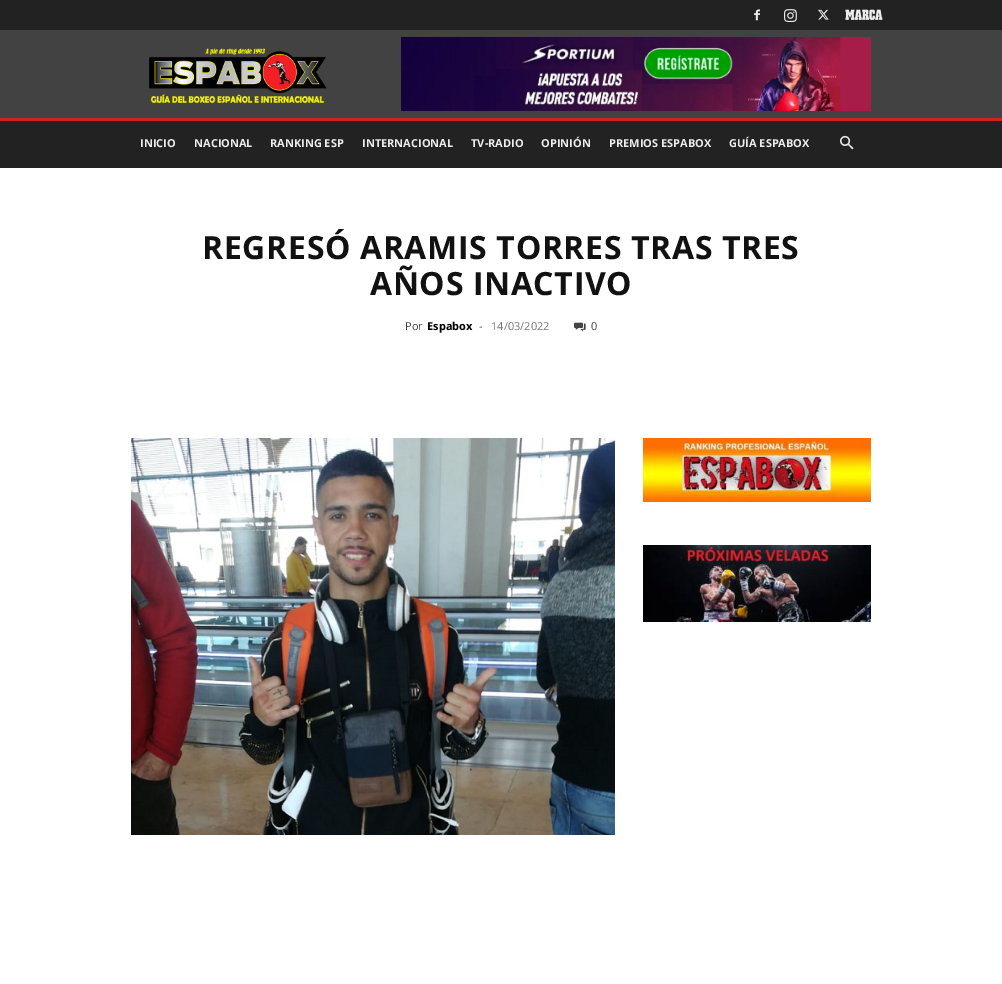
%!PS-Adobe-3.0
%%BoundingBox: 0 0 1002 984
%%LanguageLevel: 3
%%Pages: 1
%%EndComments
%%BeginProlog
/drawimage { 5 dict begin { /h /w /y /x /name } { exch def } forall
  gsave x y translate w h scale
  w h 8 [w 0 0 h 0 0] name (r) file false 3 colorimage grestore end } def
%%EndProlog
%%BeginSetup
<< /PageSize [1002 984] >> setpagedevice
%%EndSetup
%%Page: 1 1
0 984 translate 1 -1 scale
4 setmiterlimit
1 setgray
0 0 1002 984 rectfill
0.133 setgray
0 0 1002 30 rectfill
(images/1.raw) 754 9 6 12 drawimage
(images/2.raw) 784 9 13 13 drawimage
(images/3.raw) 818 9 11 11 drawimage
(images/4.raw) 845 9 38 11 drawimage
0.259 setgray
0 30 1002 88 rectfill
(images/5.raw) 149 48 178 56 drawimage
(images/6.raw) 401 37 470 74 drawimage
0.133 setgray
0 121 1002 47 rectfill
0.8 0.141 0.141 setrgbcolor
0 118 1002 3 rectfill
(images/7.raw) 840 135 14 15 drawimage
(images/8.raw) 574 322 12 10 drawimage
(images/9.raw) 131 438 484 397 drawimage
(images/10.raw) 643 438 228 64 drawimage
(images/11.raw) 643 545 228 77 drawimage
/OpenSans-Bold [11 0 0 -11 0 0] selectfont
0.929 setgray
140 147 moveto (INICIO) show
194 147 moveto (NACIONAL) show
270 147 moveto (RANKING ESP) show
362 147 moveto (INTERNACIONAL) show
471 147 moveto (TV-RADIO) show
541 147 moveto (OPINIÓN) show
609 147 moveto (PREMIOS ESPABOX) show
729 147 moveto (GUÍA ESPABOX) show
/OpenSans-Bold [32 0 0 -32 0 0] selectfont
0.067 setgray
202 259 moveto 0.65 0 (REGRESÓ ARAMIS TORRES TRAS TRES) ashow
370 295 moveto 0.65 0 (AÑOS INACTIVO) ashow
/OpenSans-Regular [11 0 0 -11 0 0] selectfont
0.267 setgray
405 330 moveto (Por) show
/OpenSans-Bold [11 0 0 -11 0 0] selectfont
0 setgray
427 330 moveto (Espabox) show
/OpenSans-Regular [11 0 0 -11 0 0] selectfont
0.267 setgray
479 330 moveto (-) show
0.463 setgray
491 330 moveto (14/03/2022) show
0.267 setgray
591 330 moveto (0) show
showpage
%%EOF
